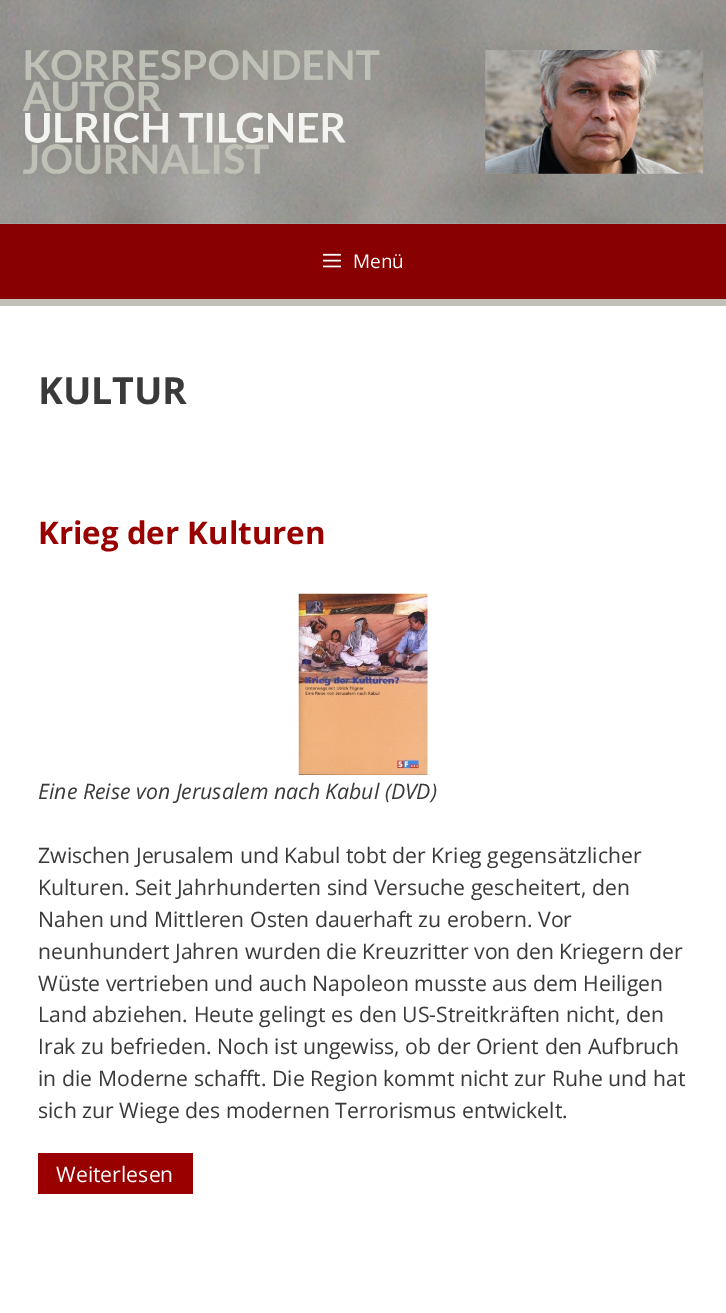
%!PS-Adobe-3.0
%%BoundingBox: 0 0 726 1313
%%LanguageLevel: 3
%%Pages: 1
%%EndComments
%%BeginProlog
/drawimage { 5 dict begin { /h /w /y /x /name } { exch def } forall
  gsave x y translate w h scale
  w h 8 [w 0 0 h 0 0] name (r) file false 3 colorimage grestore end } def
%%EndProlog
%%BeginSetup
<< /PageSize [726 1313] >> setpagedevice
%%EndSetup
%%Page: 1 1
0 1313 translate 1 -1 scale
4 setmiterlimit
1 setgray
0 0 726 1313 rectfill
(images/1.raw) 0 0 726 224 drawimage
(images/2.raw) 22 50 682 124 drawimage
0.533 0 0 setrgbcolor
0 224 726 75 rectfill
0.753 0.753 0.725 setrgbcolor
0 299 726 7 rectfill
(images/3.raw) 323 253 18 15 drawimage
(images/4.raw) 298 593 130 182 drawimage
0.6 0 0 setrgbcolor
38 1153 155 41 rectfill
/OpenSans-Regular [19 0 0 -19 0 0] selectfont
1 setgray
353 268 moveto (Menü) show
/OpenSans-Bold [37.5 0 0 -37.5 0 0] selectfont
0.227 setgray
38 404 moveto (KULTUR) show
/OpenSans-Bold [31.25 0 0 -31.25 0 0] selectfont
0.6 0 0 setrgbcolor
38 544 moveto (Krieg der Kulturen) show
/OpenSans-Italic [21.25 0 0 -21.25 0 0] selectfont
0.227 setgray
38 799 moveto (Eine Reise von Jerusalem nach Kabul \(DVD\)) show
/OpenSans-Regular [21.25 0 0 -21.25 0 0] selectfont
38 863 moveto (Zwischen Jerusalem und Kabul tobt der Krieg gegensätzlicher) show
38 895 moveto (Kulturen. Seit Jahrhunderten sind Versuche gescheitert, den) show
38 927 moveto (Nahen und Mittleren Osten dauerhaft zu erobern. Vor) show
38 959 moveto (neunhundert Jahren wurden die Kreuzritter von den Kriegern der) show
38 991 moveto (Wüste vertrieben und auch Napoleon musste aus dem Heiligen) show
38 1022 moveto (Land abziehen. Heute gelingt es den US-Streitkräften nicht, den) show
38 1054 moveto (Irak zu befrieden. Noch ist ungewiss, ob der Orient den Aufbruch) show
38 1086 moveto (in die Moderne schafft. Die Region kommt nicht zur Ruhe und hat) show
38 1118 moveto (sich zur Wiege des modernen Terrorismus entwickelt.) show
1 setgray
56 1182 moveto (Weiterlesen) show
showpage
%%EOF
